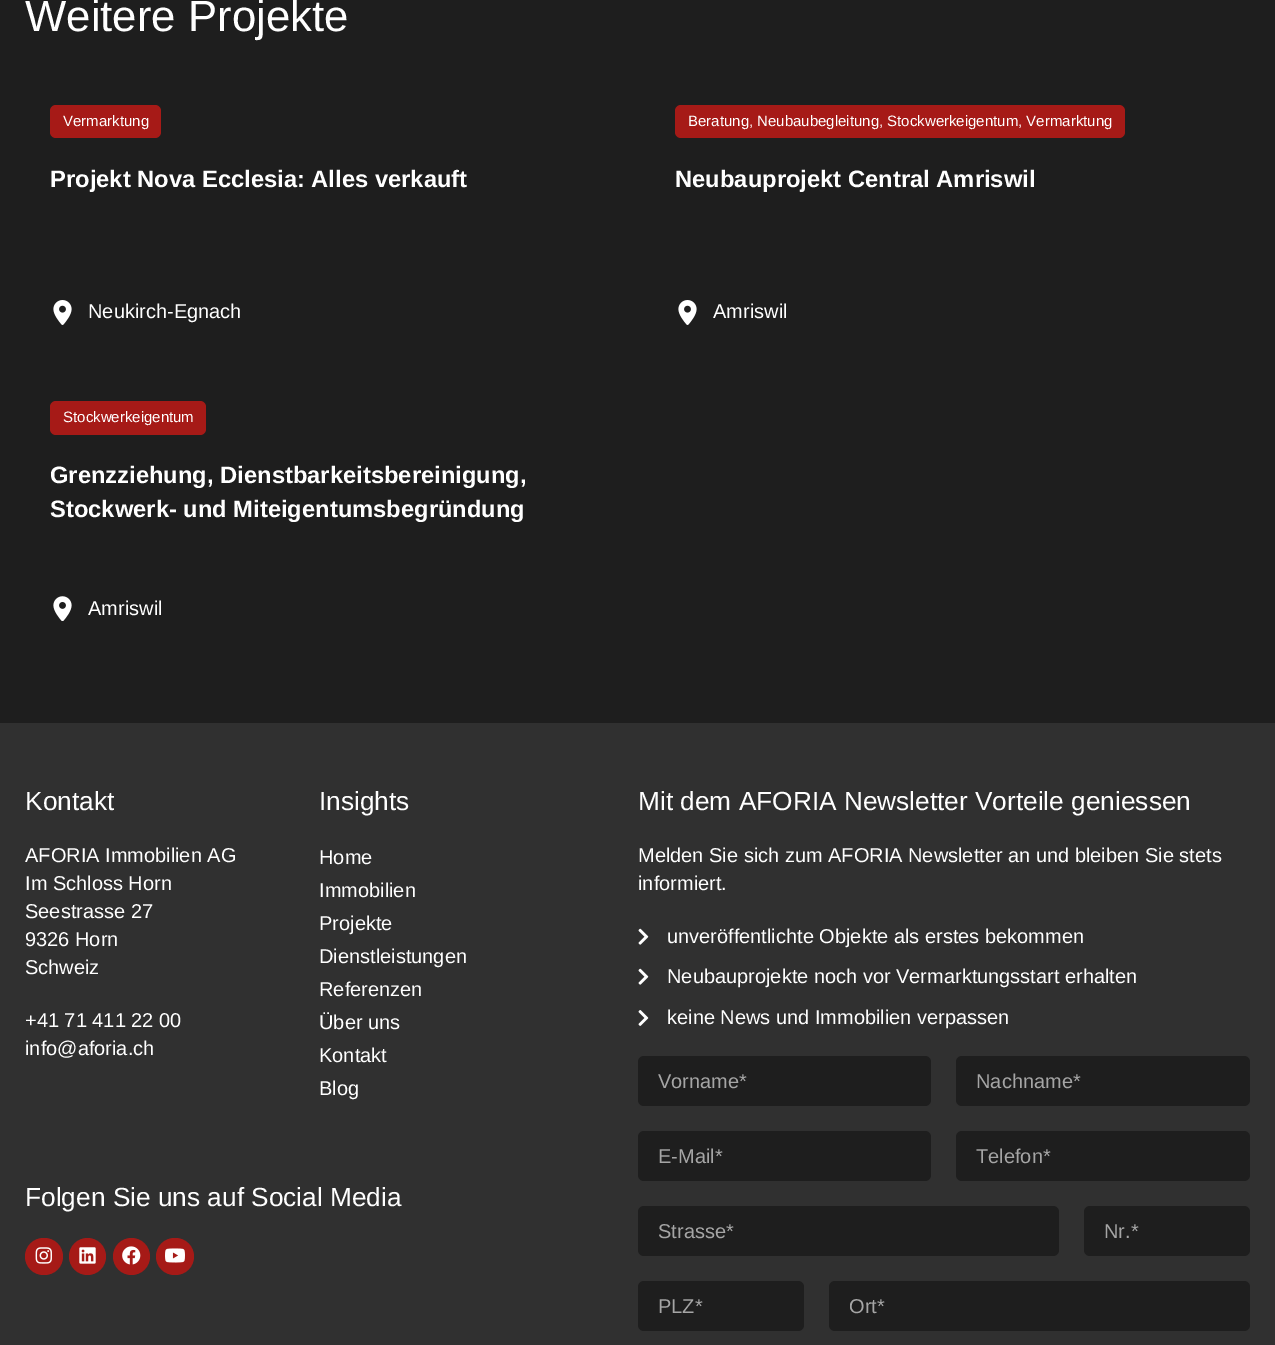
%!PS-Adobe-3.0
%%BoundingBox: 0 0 1275 1345
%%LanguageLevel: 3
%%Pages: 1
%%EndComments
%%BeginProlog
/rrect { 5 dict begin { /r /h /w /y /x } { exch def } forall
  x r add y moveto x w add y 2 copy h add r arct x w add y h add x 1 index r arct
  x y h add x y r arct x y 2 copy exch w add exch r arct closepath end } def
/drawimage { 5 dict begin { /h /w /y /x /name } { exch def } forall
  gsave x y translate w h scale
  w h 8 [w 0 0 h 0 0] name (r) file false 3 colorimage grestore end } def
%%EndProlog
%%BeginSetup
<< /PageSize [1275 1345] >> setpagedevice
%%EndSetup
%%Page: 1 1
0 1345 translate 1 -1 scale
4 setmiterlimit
0.118 setgray
0 0 1275 1345 rectfill
0.651 0.102 0.09 setrgbcolor
50 105 111 33 6 rrect fill
(images/1.raw) 53 300 19 25 drawimage
675 105 450 33 6 rrect fill
(images/1.raw) 678 300 19 25 drawimage
50 401 156 34 6 rrect fill
(images/2.raw) 53 596 19 25 drawimage
0.188 setgray
0 723 1275 622 rectfill
0.651 0.102 0.09 setrgbcolor
25 1238 38 37 18.5 rrect fill
(images/3.raw) 35 1247 17 17 drawimage
newpath 87.5 1256.5 18.5 0 360 arc closepath fill
(images/4.raw) 79 1247 17 17 drawimage
newpath 131.5 1256.5 18.5 0 360 arc closepath fill
(images/5.raw) 122 1246 19 19 drawimage
156 1238 38 37 18.5 rrect fill
(images/6.raw) 165 1248 20 15 drawimage
(images/7.raw) 638 928 11 17 drawimage
(images/7.raw) 638 968 11 17 drawimage
(images/8.raw) 638 1010 11 16 drawimage
0.118 setgray
638 1056 293 50 6 rrect fill
956 1056 294 50 6 rrect fill
638 1131 293 50 6 rrect fill
956 1131 294 50 6 rrect fill
638 1206 421 50 6 rrect fill
1084 1206 166 50 6 rrect fill
638 1281 166 50 6 rrect fill
829 1281 421 50 6 rrect fill
/LiberationSans-Regular [43.75 0 0 -43.75 0 0] selectfont
1 setgray
25 31 moveto (Weitere Projekte) show
/LiberationSans-Regular [15 0 0 -15 0 0] selectfont
63 126 moveto (Vermarktung) show
/LiberationSans-Bold [23.75 0 0 -23.75 0 0] selectfont
50 187 moveto (Projekt Nova Ecclesia: Alles verkauft) show
/LiberationSans-Regular [20 0 0 -20 0 0] selectfont
88 318 moveto (Neukirch-Egnach) show
/LiberationSans-Regular [15 0 0 -15 0 0] selectfont
688 126 moveto (Beratung, Neubaubegleitung, Stockwerkeigentum, Vermarktung) show
/LiberationSans-Bold [23.75 0 0 -23.75 0 0] selectfont
675 187 moveto (Neubauprojekt Central Amriswil) show
/LiberationSans-Regular [20 0 0 -20 0 0] selectfont
713 318 moveto (Amriswil) show
/LiberationSans-Regular [15 0 0 -15 0 0] selectfont
63 422 moveto (Stockwerkeigentum) show
/LiberationSans-Bold [23.75 0 0 -23.75 0 0] selectfont
50 483 moveto (Grenzziehung, Dienstbarkeitsbereinigung,) show
50 517 moveto (Stockwerk- und Miteigentumsbegründung) show
/LiberationSans-Regular [20 0 0 -20 0 0] selectfont
88 615 moveto (Amriswil) show
/LiberationSans-Regular [26.25 0 0 -26.25 0 0] selectfont
25 810 moveto (Kontakt) show
/LiberationSans-Regular [20 0 0 -20 0 0] selectfont
25 862 moveto (AFORIA Immobilien AG) show
25 890 moveto (Im Schloss Horn) show
25 918 moveto (Seestrasse 27) show
25 946 moveto (9326 Horn) show
25 974 moveto (Schweiz) show
25 1027 moveto (+41 71 411 22 00) show
25 1055 moveto (info@aforia.ch) show
/LiberationSans-Regular [26.25 0 0 -26.25 0 0] selectfont
319 810 moveto (Insights) show
/LiberationSans-Regular [20 0 0 -20 0 0] selectfont
319 864 moveto (Home) show
319 897 moveto (Immobilien) show
319 930 moveto (Projekte) show
319 963 moveto (Dienstleistungen) show
319 996 moveto (Referenzen) show
319 1029 moveto (Über uns) show
319 1062 moveto (Kontakt) show
319 1095 moveto (Blog) show
/LiberationSans-Regular [26.25 0 0 -26.25 0 0] selectfont
25 1206 moveto (Folgen Sie uns auf Social Media) show
638 810 moveto (Mit dem AFORIA Newsletter Vorteile geniessen) show
/LiberationSans-Regular [20 0 0 -20 0 0] selectfont
638 862 moveto (Melden Sie sich zum AFORIA Newsletter an und bleiben Sie stets) show
638 890 moveto (informiert.) show
667 943 moveto (unveröffentlichte Objekte als erstes bekommen) show
667 983 moveto (Neubauprojekte noch vor Vermarktungsstart erhalten) show
667 1024 moveto (keine News und Immobilien verpassen) show
0.647 setgray
658 1088 moveto (Vorname*) show
976 1088 moveto (Nachname*) show
658 1163 moveto (E-Mail*) show
976 1163 moveto (Telefon*) show
658 1238 moveto (Strasse*) show
1104 1238 moveto (Nr.*) show
658 1313 moveto (PLZ*) show
849 1313 moveto (Ort*) show
showpage
%%EOF
